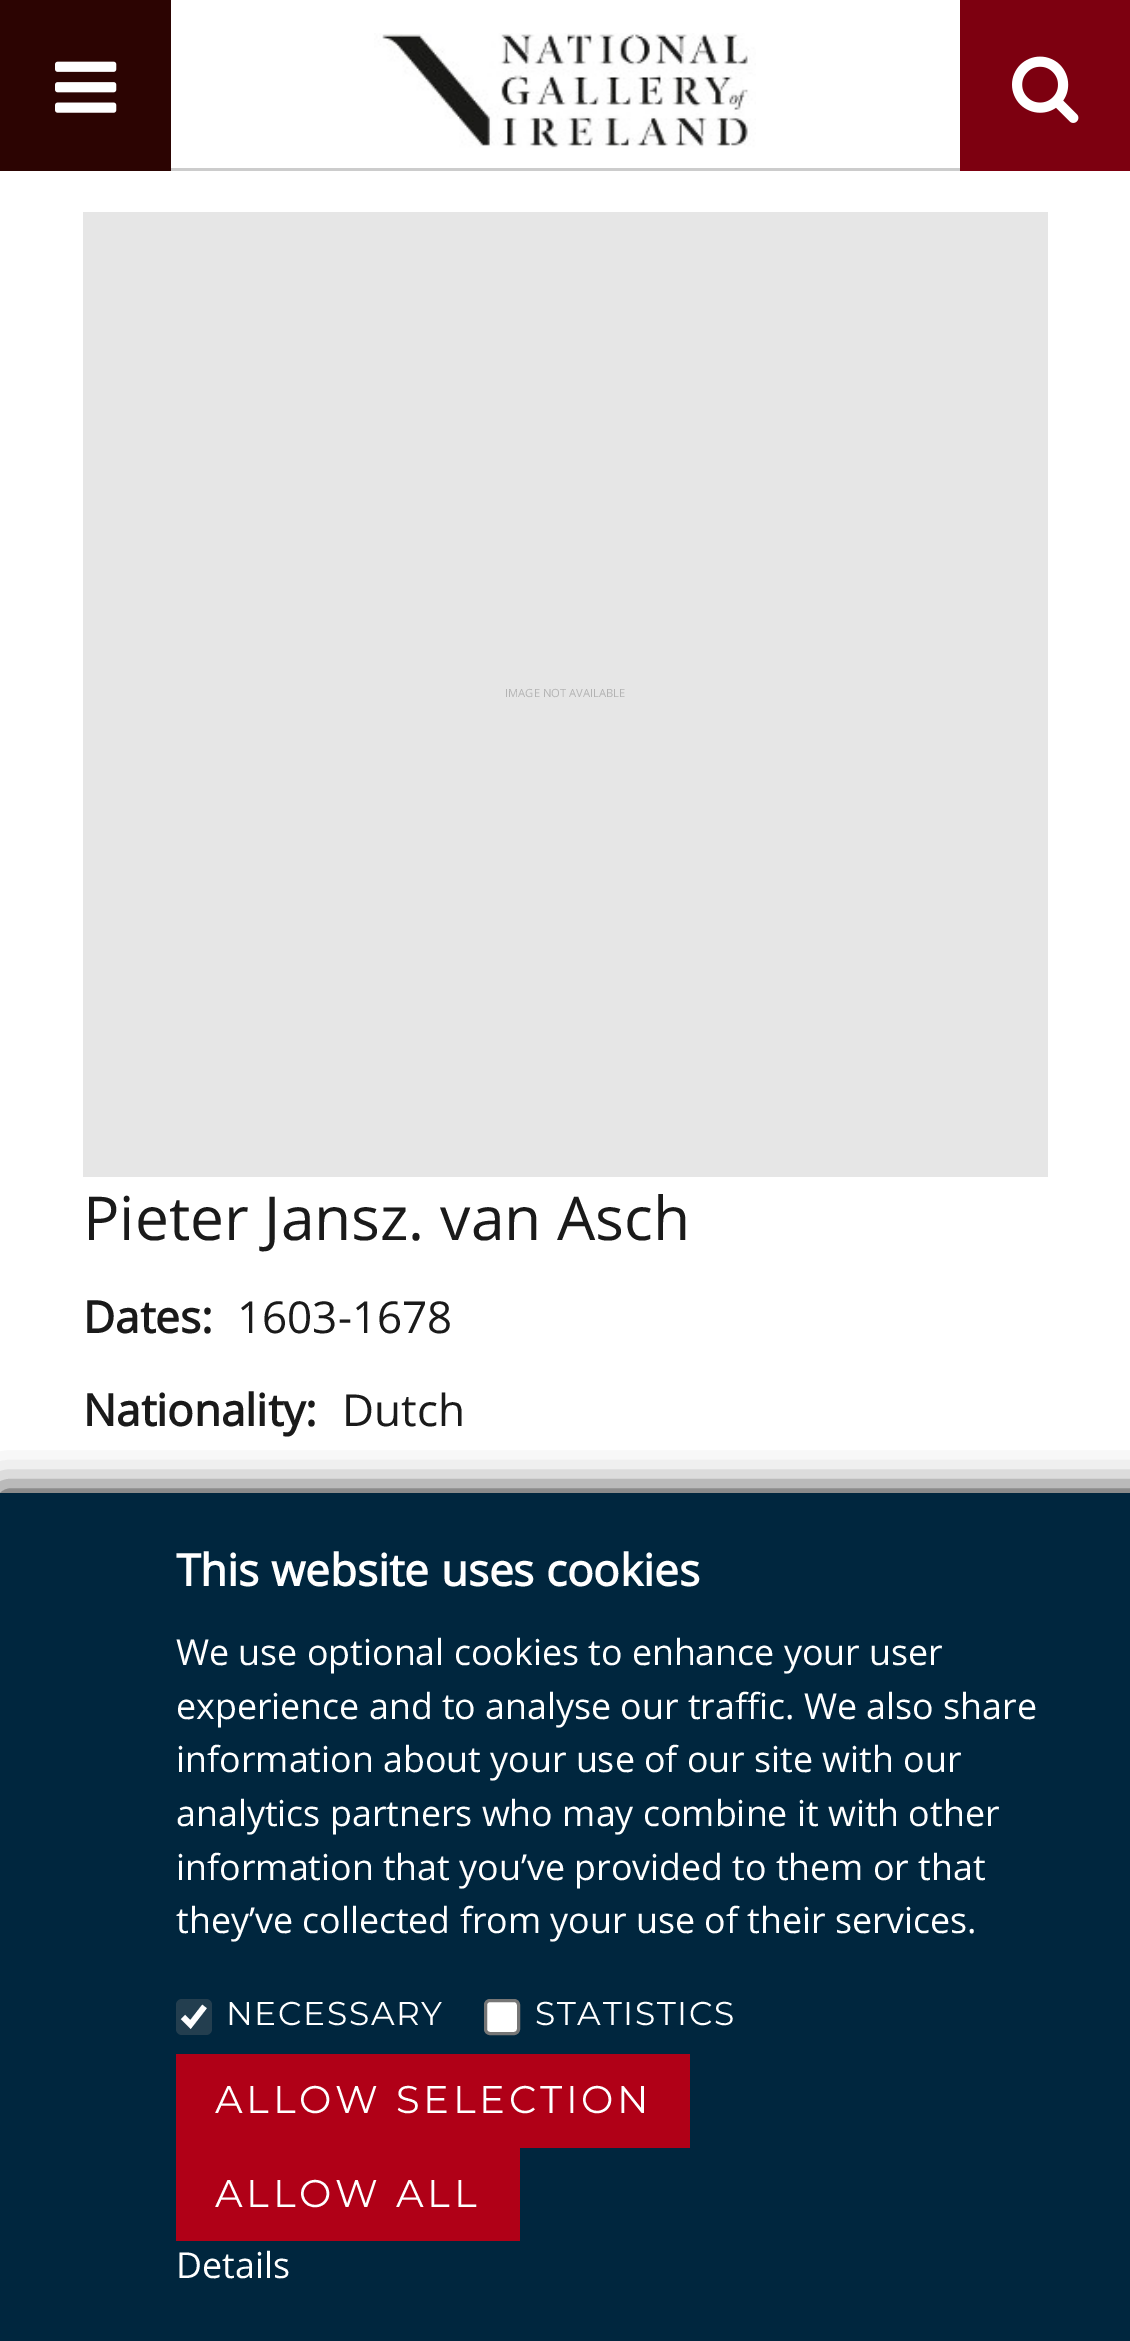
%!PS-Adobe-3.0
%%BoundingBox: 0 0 1130 2341
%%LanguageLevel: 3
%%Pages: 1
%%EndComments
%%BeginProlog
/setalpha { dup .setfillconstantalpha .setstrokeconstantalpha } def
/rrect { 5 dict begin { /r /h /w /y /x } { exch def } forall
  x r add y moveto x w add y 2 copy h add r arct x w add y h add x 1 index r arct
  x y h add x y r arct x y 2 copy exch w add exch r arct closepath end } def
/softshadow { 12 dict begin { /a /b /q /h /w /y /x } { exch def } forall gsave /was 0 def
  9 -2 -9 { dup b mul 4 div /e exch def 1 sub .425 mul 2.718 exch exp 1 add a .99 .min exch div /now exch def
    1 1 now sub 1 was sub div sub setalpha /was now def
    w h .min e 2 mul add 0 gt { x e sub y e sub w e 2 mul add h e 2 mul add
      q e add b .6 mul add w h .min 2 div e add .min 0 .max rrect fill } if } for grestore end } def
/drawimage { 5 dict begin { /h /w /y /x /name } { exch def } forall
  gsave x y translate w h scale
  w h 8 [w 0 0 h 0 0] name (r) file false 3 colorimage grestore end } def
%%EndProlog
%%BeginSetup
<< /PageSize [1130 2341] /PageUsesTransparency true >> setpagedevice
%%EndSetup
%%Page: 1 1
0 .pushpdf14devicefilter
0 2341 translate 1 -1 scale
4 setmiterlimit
1 setgray
0 0 1130 2341 rectfill
0.8 setgray
171 168 789 3 rectfill
0.173 0.016 0.008 setrgbcolor
0 0 171 171 rectfill
(images/1.raw) 55 61 62 52 drawimage
(images/2.raw) 374 33 382 115 drawimage
0.49 0 0.063 setrgbcolor
960 0 170 171 rectfill
(images/3.raw) 1012 56 67 67 drawimage
0.902 setgray
83 212 965 965 rectfill
0.071 setgray
0 1493 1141 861 0 19 1 softshadow
0 0.149 0.243 setrgbcolor
0 1493 1130 848 rectfill
0.137 0.243 0.31 setrgbcolor
176 1999 36 36 6 rrect fill
1 setgray
5.7 setlinewidth
newpath 183 2017 moveto 190.5 2024.5 lineto 204.5 2006.5 lineto stroke
485.5 2000.5 33 33 4.5 rrect gsave fill grestore
0.463 setgray
3 setlinewidth
stroke
0.69 0 0.09 setrgbcolor
176 2054 514 94 rectfill
176 2148 344 93 rectfill
/OpenSans-Regular [11.25 0 0 -11.25 0 0] selectfont
0.702 setgray
505 697 moveto (IMAGE NOT AVAILABLE) show
/OpenSans-Regular [60.5 0 0 -60.5 0 0] selectfont
0.102 setgray
83 1240 moveto (Pieter Jansz. van Asch) show
/OpenSans-Bold [44 0 0 -44 0 0] selectfont
83 1333 moveto (Dates:) show
/OpenSans-Regular [44 0 0 -44 0 0] selectfont
237 1333 moveto (1603-1678) show
/OpenSans-Bold [44 0 0 -44 0 0] selectfont
83 1426 moveto (Nationality:) show
/OpenSans-Regular [44 0 0 -44 0 0] selectfont
342 1426 moveto (Dutch) show
/OpenSans-Bold [44 0 0 -44 0 0] selectfont
1 setgray
176 1586 moveto (This website uses cookies) show
/OpenSans-Regular [35.75 0 0 -35.75 0 0] selectfont
176 1665 moveto (We use optional cookies to enhance your user) show
176 1719 moveto (experience and to analyse our traffic. We also share) show
176 1772 moveto (information about your use of our site with our) show
176 1826 moveto (analytics partners who may combine it with other) show
176 1880 moveto (information that you’ve provided to them or that) show
176 1933 moveto (they’ve collected from your use of their services.) show
/Montserrat-Regular [33 0 0 -33 0 0] selectfont
226 2025 moveto 1.6 0 (NECESSARY) ashow
535 2025 moveto 1.6 0 (STATISTICS) ashow
/Montserrat-Regular [38.5 0 0 -38.5 0 0] selectfont
215 2113 moveto 3.8 0 (ALLOW SELECTION) ashow
215 2207 moveto 3.8 0 (ALLOW ALL) ashow
/OpenSans-Regular [35.75 0 0 -35.75 0 0] selectfont
176 2278 moveto (Details) show
.poppdf14devicefilter showpage
%%EOF
